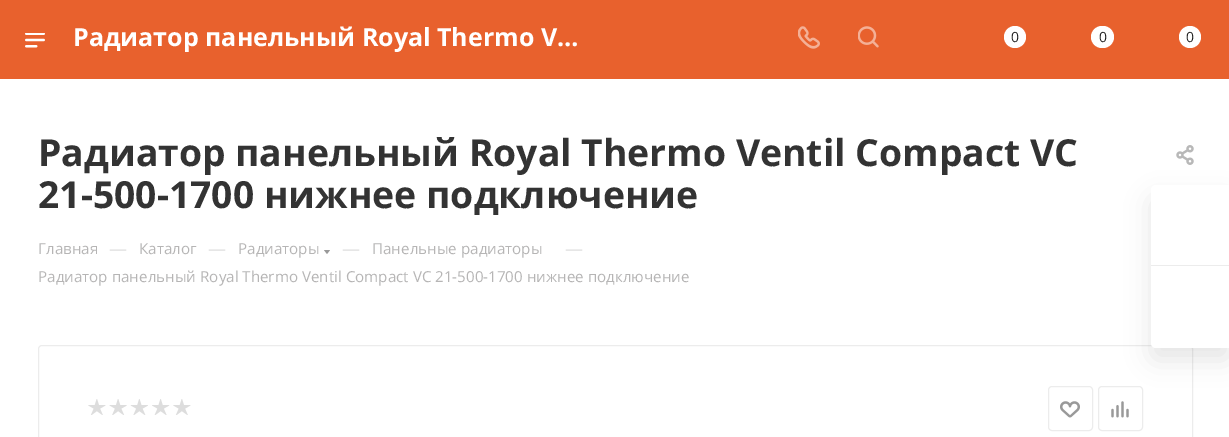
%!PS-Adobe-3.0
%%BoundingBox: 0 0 1229 437
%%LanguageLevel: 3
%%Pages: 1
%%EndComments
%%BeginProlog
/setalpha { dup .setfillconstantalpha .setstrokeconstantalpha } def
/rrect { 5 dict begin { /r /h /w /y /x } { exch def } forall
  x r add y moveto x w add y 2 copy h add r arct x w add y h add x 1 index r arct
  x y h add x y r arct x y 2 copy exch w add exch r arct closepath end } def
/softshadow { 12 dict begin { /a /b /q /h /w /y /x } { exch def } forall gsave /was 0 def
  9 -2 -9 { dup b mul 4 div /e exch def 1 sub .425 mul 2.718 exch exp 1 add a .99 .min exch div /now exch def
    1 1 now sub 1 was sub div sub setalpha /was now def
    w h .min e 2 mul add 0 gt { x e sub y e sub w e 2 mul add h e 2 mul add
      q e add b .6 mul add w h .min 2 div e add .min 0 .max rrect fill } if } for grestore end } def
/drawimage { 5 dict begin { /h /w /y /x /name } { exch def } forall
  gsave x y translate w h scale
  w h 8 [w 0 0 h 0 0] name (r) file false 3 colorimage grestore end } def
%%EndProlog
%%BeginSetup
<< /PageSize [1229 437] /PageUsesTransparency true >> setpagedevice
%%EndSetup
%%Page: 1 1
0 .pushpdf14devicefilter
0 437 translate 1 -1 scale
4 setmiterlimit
1 setgray
0 0 1229 437 rectfill
0.91 0.38 0.176 setrgbcolor
0 0 1229 79 rectfill
(images/1.raw) 25 33 20 15 drawimage
(images/2.raw) 798 26 22 23 drawimage
(images/3.raw) 858 26 21 22 drawimage
1 setgray
newpath 1015 37 11 0 360 arc closepath fill
1091 26 23 22 11 rrect fill
newpath 1190 37 11 0 360 arc closepath fill
(images/4.raw) 1176 145 18 20 drawimage
0.6 setgray
newpath 324 250 moveto 330 250 lineto 327 254 lineto closepath eofill
0.925 setgray
38.5 345.5 1154 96 3.5 rrect stroke
(images/5.raw) 88 399 18 16 drawimage
(images/6.raw) 109 399 18 16 drawimage
(images/7.raw) 130 399 18 16 drawimage
(images/8.raw) 152 399 18 16 drawimage
(images/5.raw) 173 399 18 16 drawimage
1048.5 386.5 44 44 3.5 rrect stroke
(images/9.raw) 1060 401 20 17 drawimage
1098.5 386.5 44 44 3.5 rrect stroke
(images/10.raw) 1111 401 18 17 drawimage
0 setgray
1151 198 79 162 5 12.5 0.1 softshadow
1 setgray
newpath 1156 185 moveto 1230 185 lineto 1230 348 lineto 1156 348 lineto 1153 348 1151 346 1151 343 curveto 1151 190 lineto 1151 187 1153 185 1156 185 curveto closepath fill
0.925 setgray
1151 265 78 1 rectfill
/OpenSans-Bold [25 0 0 -25 0 0] selectfont
1 setgray
73 46 moveto (Радиатор панельный Royal Thermo V…) show
/OpenSans-Regular [14 0 0 -14 0 0] selectfont
0.133 setgray
1011 42 moveto (0) show
1099 42 moveto (0) show
1186 42 moveto (0) show
/OpenSans-Bold [37.3 0 0 -37.3 0 0] selectfont
0.2 setgray
38 166 moveto (Радиатор панельный Royal Thermo Ventil Compact VC) show
gsave
38 131 1097 84 rectclip
38 208 moveto (21-500-1700 нижнее подключение) show
grestore
/OpenSans-Regular [15.15 0 0 -15.15 0 0] selectfont
0.714 0.71 0.71 setrgbcolor
38 254 moveto (Главная) show
/OpenSans-Regular [18 0 0 -18 0 0] selectfont
0.867 setgray
109 255 moveto (—) show
/OpenSans-Regular [15.15 0 0 -15.15 0 0] selectfont
0.714 0.71 0.71 setrgbcolor
139 254 moveto (Каталог) show
/OpenSans-Regular [18 0 0 -18 0 0] selectfont
0.867 setgray
208 255 moveto (—) show
/OpenSans-Regular [15.15 0 0 -15.15 0 0] selectfont
0.714 0.71 0.71 setrgbcolor
238 254 moveto (Радиаторы) show
/OpenSans-Regular [18 0 0 -18 0 0] selectfont
0.867 setgray
342 255 moveto (—) show
/OpenSans-Regular [15.15 0 0 -15.15 0 0] selectfont
0.714 0.71 0.71 setrgbcolor
372 254 moveto (Панельные радиаторы) show
/OpenSans-Regular [18 0 0 -18 0 0] selectfont
0.867 setgray
565 255 moveto (—) show
/OpenSans-Regular [15.15 0 0 -15.15 0 0] selectfont
0.714 0.71 0.71 setrgbcolor
38 282 moveto (Радиатор панельный Royal Thermo Ventil Compact VC 21-500-1700 нижнее подключение) show
.poppdf14devicefilter showpage
%%EOF
